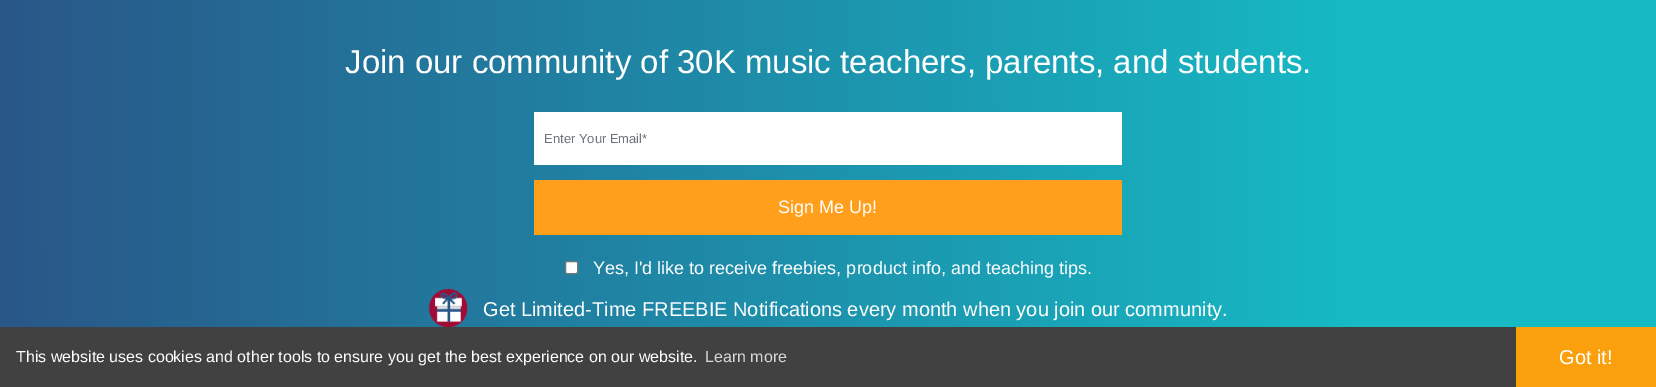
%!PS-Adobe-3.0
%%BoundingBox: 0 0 1656 387
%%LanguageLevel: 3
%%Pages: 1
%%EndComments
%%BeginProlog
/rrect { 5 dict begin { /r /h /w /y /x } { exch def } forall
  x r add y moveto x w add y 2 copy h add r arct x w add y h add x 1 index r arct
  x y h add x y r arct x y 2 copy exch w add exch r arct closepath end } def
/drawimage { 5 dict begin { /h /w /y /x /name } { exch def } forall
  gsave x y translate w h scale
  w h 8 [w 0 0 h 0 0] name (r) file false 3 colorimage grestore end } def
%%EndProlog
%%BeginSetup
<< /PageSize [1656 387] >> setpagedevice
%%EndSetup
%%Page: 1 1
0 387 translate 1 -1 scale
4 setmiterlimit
1 setgray
0 0 1656 387 rectfill
gsave newpath 0 0 moveto 1656 0 lineto 1656 327 lineto 0 327 lineto closepath clip newpath
<< /ShadingType 2 /ColorSpace /DeviceRGB /Coords [0 223 1656 222] /Extend [true true] /Function << /FunctionType 3 /Domain [0 1] /Functions [<< /FunctionType 2 /Domain [0 1] /C0 [0.161 0.341 0.533] /C1 [0.086 0.729 0.773] /N 1 >> << /FunctionType 2 /Domain [0 1] /C0 [0.086 0.729 0.773] /C1 [0.086 0.729 0.773] /N 1 >>] /Bounds [0.82] /Encode [0 1 0 1] >> >> shfill grestore
534 112 588 53 rectfill
1 0.624 0.11 setrgbcolor
534 180 588 55 rectfill
1 setgray
565.5 261.5 12 12 1.5 rrect gsave fill grestore
0.463 setgray
stroke
(images/1.raw) 428 288 40 39 drawimage
0.255 0.255 0.259 setrgbcolor
0 327 1516 60 rectfill
0.98 0.627 0.047 setrgbcolor
1516 327 140 60 rectfill
/LiberationSans-Regular [33 0 0 -33 0 0] selectfont
1 setgray
345 73 moveto (Join our community of 30K music teachers, parents, and students.) show
/LiberationSans-Regular [13 0 0 -13 0 0] selectfont
0.424 0.459 0.49 setrgbcolor
544 143 moveto (Enter Your Email*) show
/LiberationSans-Regular [18 0 0 -18 0 0] selectfont
1 setgray
778 213 moveto (Sign Me Up!) show
593 274 moveto (Yes, I'd like to receive freebies, product info, and teaching tips.) show
/LiberationSans-Regular [20 0 0 -20 0 0] selectfont
483 316 moveto (Get Limited-Time FREEBIE Notifications every month when you join our community.) show
/LiberationSans-Regular [16 0 0 -16 0 0] selectfont
16 362 moveto (This website uses cookies and other tools to ensure you get the best experience on our website.) show
0.851 setgray
705 362 moveto (Learn more) show
/LiberationSans-Regular [20 0 0 -20 0 0] selectfont
1 setgray
1559 364 moveto (Got it!) show
showpage
%%EOF
